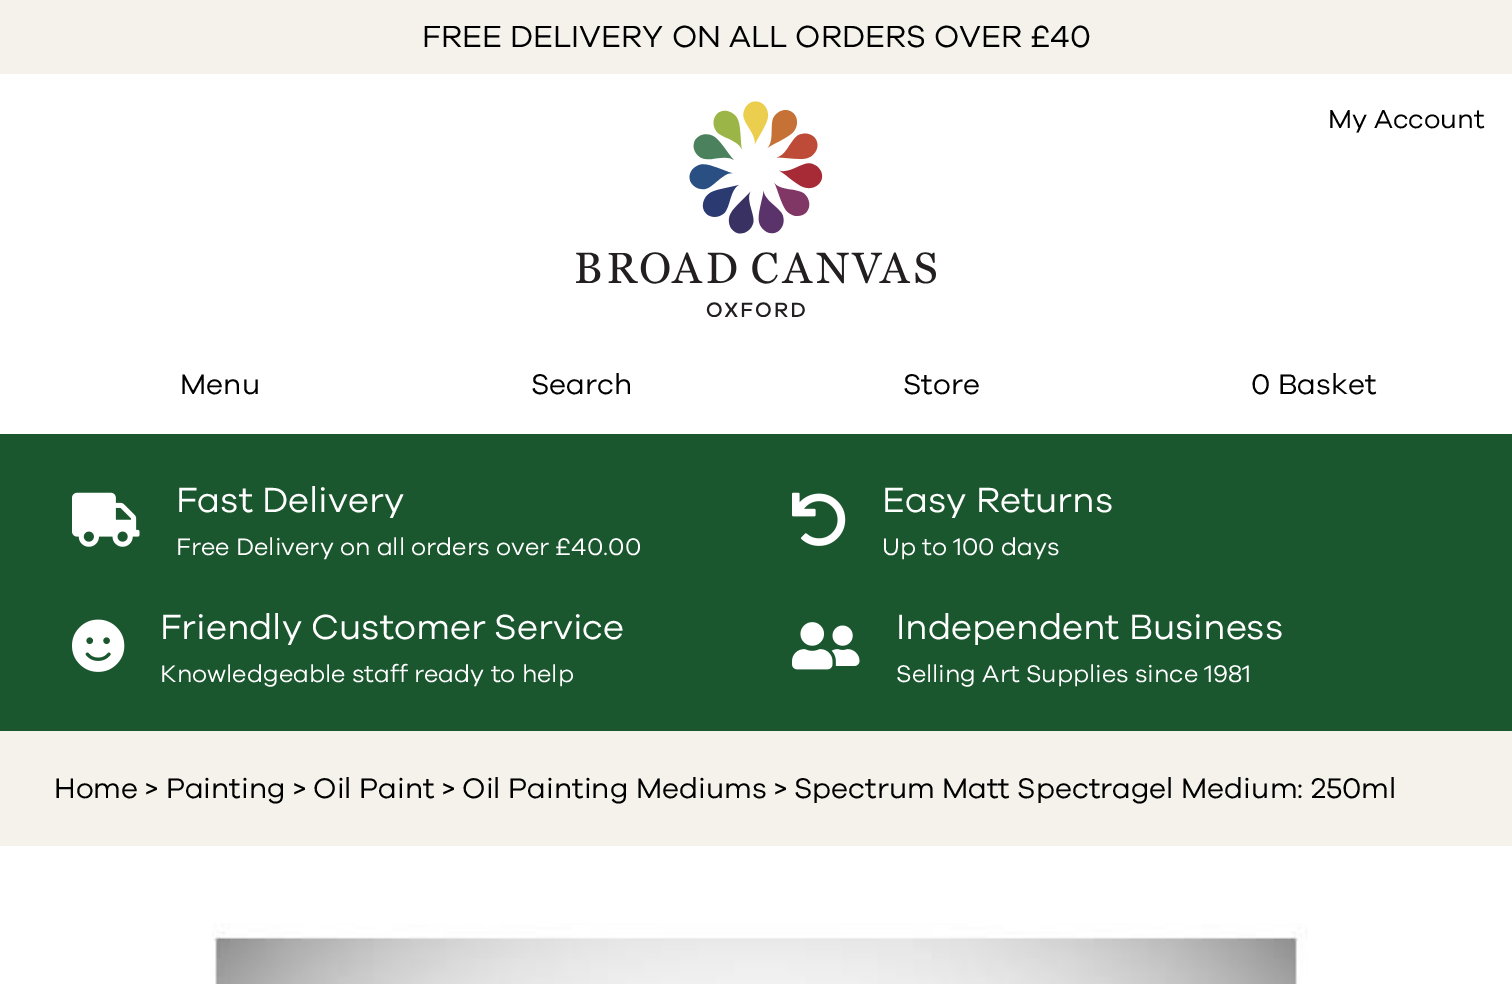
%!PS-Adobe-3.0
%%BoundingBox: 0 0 1512 984
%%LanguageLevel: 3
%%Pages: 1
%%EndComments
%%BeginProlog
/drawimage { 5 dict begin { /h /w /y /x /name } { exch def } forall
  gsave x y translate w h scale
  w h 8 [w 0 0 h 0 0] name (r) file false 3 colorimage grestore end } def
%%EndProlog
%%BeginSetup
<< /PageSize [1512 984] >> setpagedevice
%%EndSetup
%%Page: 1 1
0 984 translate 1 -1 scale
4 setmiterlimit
1 setgray
0 0 1512 984 rectfill
0.957 0.949 0.918 setrgbcolor
0 0 1512 74 rectfill
(images/1.raw) 576 101 360 216 drawimage
0.106 0.341 0.18 setrgbcolor
0 434 1512 297 rectfill
(images/2.raw) 72 492 68 55 drawimage
(images/3.raw) 792 492 54 54 drawimage
(images/4.raw) 72 619 53 53 drawimage
(images/5.raw) 792 622 68 48 drawimage
0.957 0.949 0.918 setrgbcolor
0 731 1512 115 rectfill
(images/6.raw) 212 923 1096 61 drawimage
/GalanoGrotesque-Regular [31.5 0 0 -31.5 0 0] selectfont
0 setgray
422 47 moveto (FREE DELIVERY ON ALL ORDERS OVER £40) show
/GalanoGrotesque-Regular [27 0 0 -27 0 0] selectfont
1328 128 moveto (My Account) show
/GalanoGrotesque-Regular [29.25 0 0 -29.25 0 0] selectfont
180 394 moveto (Menu) show
531 394 moveto (Search) show
903 394 moveto (Store) show
1251 394 moveto (0 Basket) show
/GalanoGrotesque-Regular [36 0 0 -36 0 0] selectfont
1 setgray
176 512 moveto (Fast Delivery) show
/GalanoGrotesque-Regular [24.75 0 0 -24.75 0 0] selectfont
176 555 moveto (Free Delivery on all orders over £40.00) show
/GalanoGrotesque-Regular [36 0 0 -36 0 0] selectfont
882 512 moveto (Easy Returns) show
/GalanoGrotesque-Regular [24.75 0 0 -24.75 0 0] selectfont
882 555 moveto (Up to 100 days) show
/GalanoGrotesque-Regular [36 0 0 -36 0 0] selectfont
160 639 moveto (Friendly Customer Service) show
/GalanoGrotesque-Regular [24.75 0 0 -24.75 0 0] selectfont
160 682 moveto (Knowledgeable staff ready to help) show
/GalanoGrotesque-Regular [36 0 0 -36 0 0] selectfont
896 639 moveto (Independent Business) show
/GalanoGrotesque-Regular [24.75 0 0 -24.75 0 0] selectfont
896 682 moveto (Selling Art Supplies since 1981) show
/GalanoGrotesque-Regular [29.25 0 0 -29.25 0 0] selectfont
0 setgray
54 798 moveto (Home > Painting > Oil Paint > Oil Painting Mediums > Spectrum Matt Spectragel Medium: 250ml) show
showpage
%%EOF
